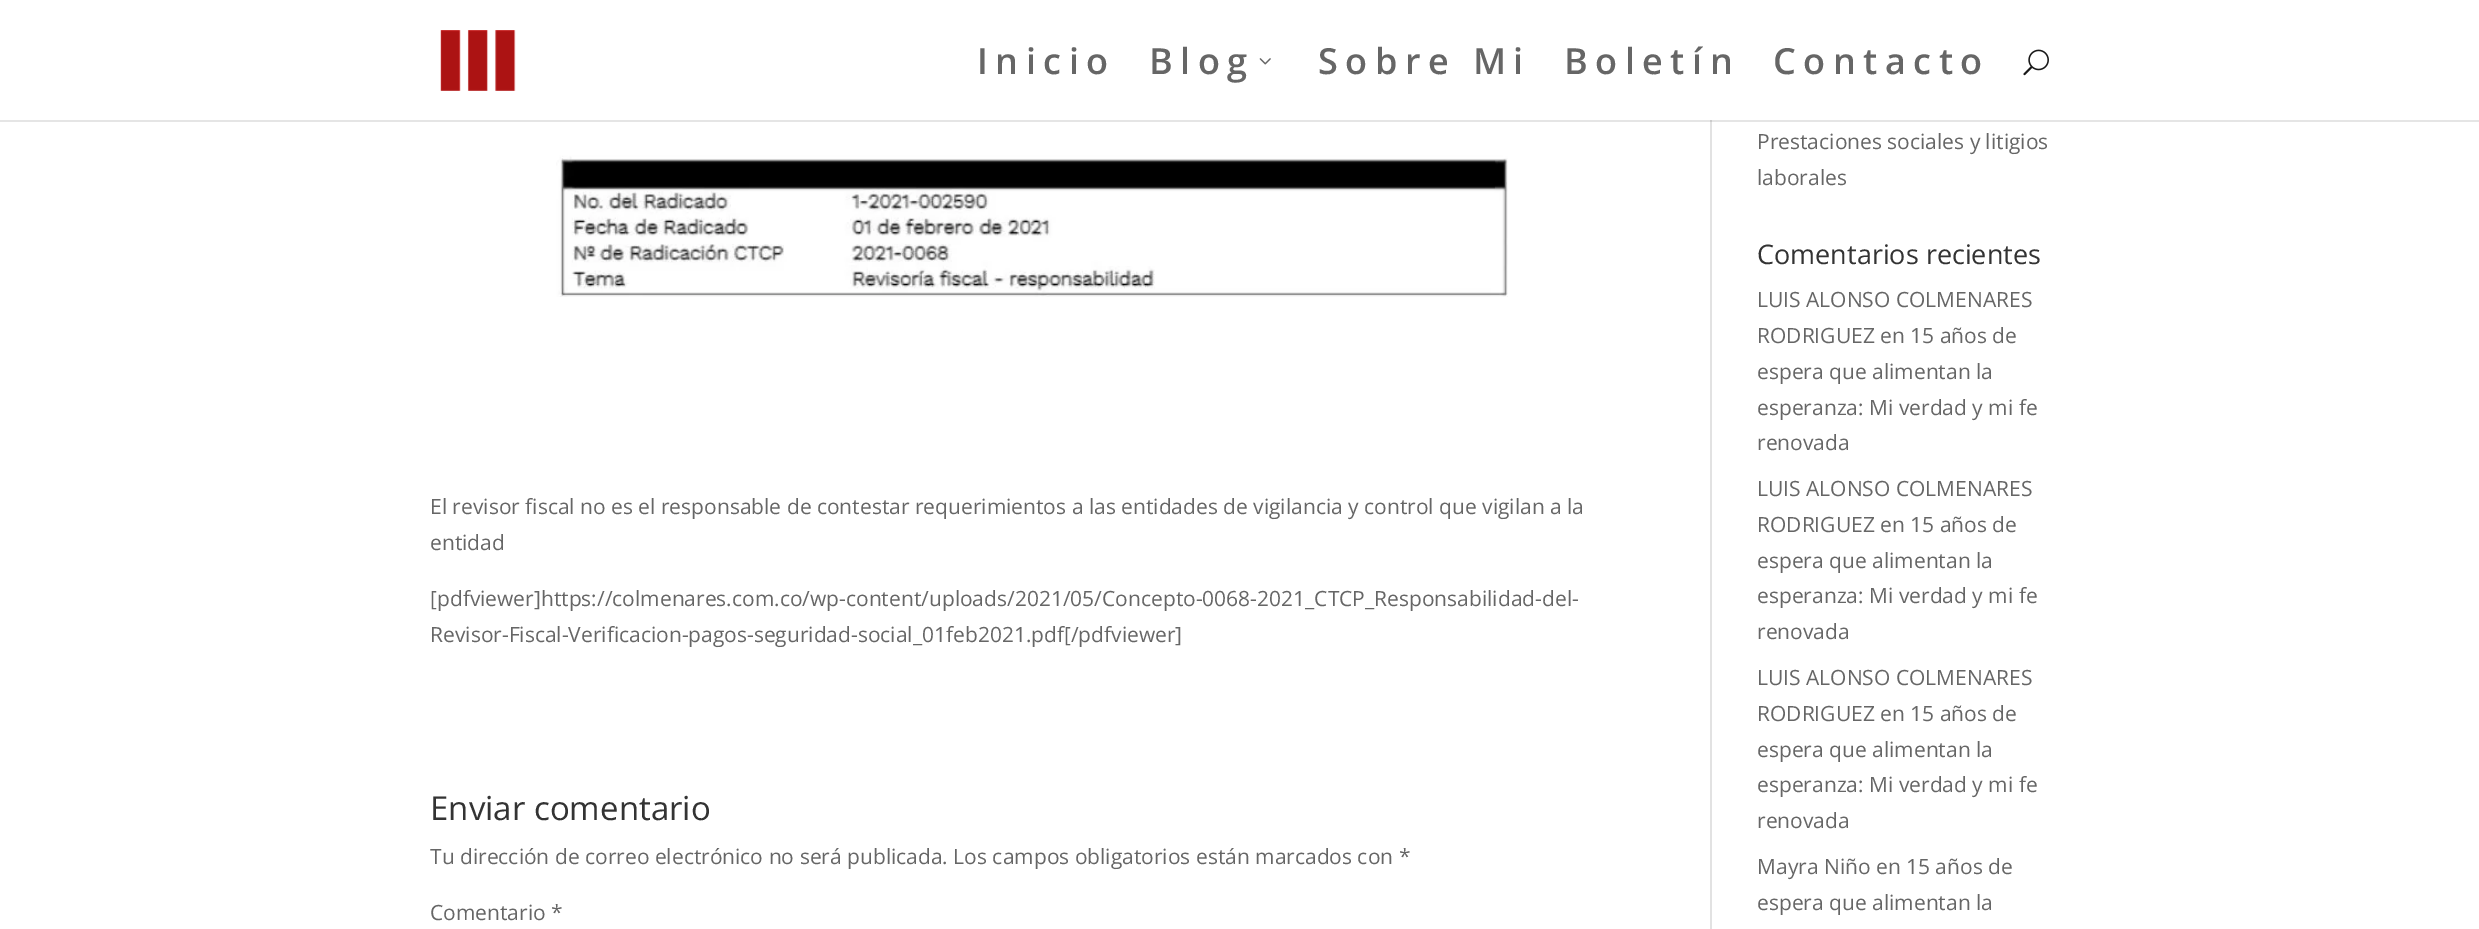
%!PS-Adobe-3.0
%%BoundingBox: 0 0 2479 929
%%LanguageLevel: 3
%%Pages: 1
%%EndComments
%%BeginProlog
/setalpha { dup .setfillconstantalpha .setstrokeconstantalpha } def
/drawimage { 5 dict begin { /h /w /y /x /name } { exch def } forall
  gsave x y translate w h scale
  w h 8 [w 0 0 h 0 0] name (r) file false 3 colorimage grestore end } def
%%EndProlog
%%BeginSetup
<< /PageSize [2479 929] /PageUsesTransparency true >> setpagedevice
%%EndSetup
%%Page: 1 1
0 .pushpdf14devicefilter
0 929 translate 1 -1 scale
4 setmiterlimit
1 setgray
0 0 2479 929 rectfill
0.886 setgray
1710 120 2 809 rectfill
(images/4.raw) 556 120 952 177 drawimage
0.1 setalpha
0 setgray
newpath 0 120 moveto 0 122 lineto 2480 122 lineto 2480 2 lineto 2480 120 lineto closepath fill
1 setalpha
(images/1.raw) 440 30 76 61 drawimage
(images/2.raw) 1259 58 12 7 drawimage
(images/3.raw) 2023 49 26 27 drawimage
/OpenSans-SemiBold [36 0 0 -36 0 0] selectfont
0.4 setgray
977 74 moveto 7.5 0 (Inicio) ashow
1149 74 moveto 7.5 0 (Blog) ashow
1318 74 moveto 7.5 0 (Sobre Mi) ashow
1564 74 moveto 7.5 0 (Boletín) ashow
1773 74 moveto 7.5 0 (Contacto) ashow
/OpenSans-Regular [21 0 0 -21 0 0] selectfont
430 514 moveto (El revisor fiscal no es el responsable de contestar requerimientos a las entidades de vigilancia y control que vigilan a la) show
430 550 moveto (entidad) show
430 606 moveto ([pdfviewer]https://colmenares.com.co/wp-content/uploads/2021/05/Concepto-0068-2021_CTCP_Responsabilidad-del-) show
430 642 moveto (Revisor-Fiscal-Verificacion-pagos-seguridad-social_01feb2021.pdf[/pdfviewer]) show
/OpenSans-Regular [33 0 0 -33 0 0] selectfont
0.2 setgray
430 820 moveto (Enviar comentario) show
/OpenSans-Regular [21 0 0 -21 0 0] selectfont
0.4 setgray
430 864 moveto (Tu dirección de correo electrónico no será publicada. Los campos obligatorios están marcados con *) show
430 920 moveto (Comentario *) show
1757 149 moveto (Prestaciones sociales y litigios) show
1757 185 moveto (laborales) show
/OpenSans-Regular [27 0 0 -27 0 0] selectfont
0.2 setgray
1757 264 moveto (Comentarios recientes) show
/OpenSans-Regular [21 0 0 -21 0 0] selectfont
0.4 setgray
1757 307 moveto (LUIS ALONSO COLMENARES) show
1757 343 moveto (RODRIGUEZ en 15 años de) show
1757 379 moveto (espera que alimentan la) show
1757 415 moveto (esperanza: Mi verdad y mi fe) show
1757 450 moveto (renovada) show
1757 496 moveto (LUIS ALONSO COLMENARES) show
1757 532 moveto (RODRIGUEZ en 15 años de) show
1757 568 moveto (espera que alimentan la) show
1757 603 moveto (esperanza: Mi verdad y mi fe) show
1757 639 moveto (renovada) show
1757 685 moveto (LUIS ALONSO COLMENARES) show
1757 721 moveto (RODRIGUEZ en 15 años de) show
1757 757 moveto (espera que alimentan la) show
1757 792 moveto (esperanza: Mi verdad y mi fe) show
1757 828 moveto (renovada) show
1757 874 moveto (Mayra Niño en 15 años de) show
1757 910 moveto (espera que alimentan la) show
.poppdf14devicefilter showpage
%%EOF
